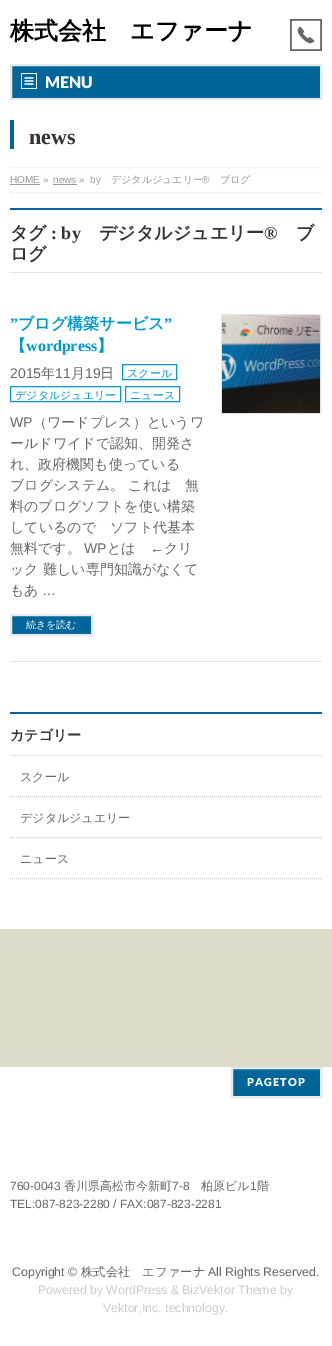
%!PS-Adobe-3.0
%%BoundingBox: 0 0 332 1346
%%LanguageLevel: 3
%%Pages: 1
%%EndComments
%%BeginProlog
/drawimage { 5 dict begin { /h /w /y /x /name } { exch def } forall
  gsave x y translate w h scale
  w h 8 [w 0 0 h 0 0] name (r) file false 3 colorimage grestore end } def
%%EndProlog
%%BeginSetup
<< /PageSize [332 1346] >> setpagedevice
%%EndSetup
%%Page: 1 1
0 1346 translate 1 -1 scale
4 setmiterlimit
0.867 0.863 0.788 setrgbcolor
0 0 332 1346 rectfill
1 setgray
0 0 332 100 rectfill
(images/1.raw) 290 19 32 32 drawimage
0 0.4 0.6 setrgbcolor
newpath 11.5 65.5 moveto 320.5 65.5 lineto 320.5 98.5 lineto 11.5 98.5 lineto closepath gsave fill grestore
0.902 0.941 0.961 setrgbcolor
stroke
0.898 setgray
10.5 64.5 311 35 rectstroke
(images/2.raw) 21 73 16 16 drawimage
1 setgray
0 100 332 67 rectfill
0 0.4 0.6 setrgbcolor
10 120 4 29 rectfill
1 setgray
0 167 332 762 rectfill
0.898 setgray
[1 1] 0 setdash
newpath 10 167.5 moveto 322 167.5 lineto stroke
newpath 10 192.5 moveto 322 192.5 lineto stroke
0.6 setgray
10 184 30 1 rectfill
53 184 24 1 rectfill
0 0.4 0.6 setrgbcolor
10 208 312 2 rectfill
0.898 setgray
10 272 312 1 rectfill
10 661 312 1 rectfill
0 0.6 0.8 setrgbcolor
[] 0 setdash
122.5 364.5 54 15 rectstroke
10.5 386.5 110 15 rectstroke
125.5 386.5 54 15 rectstroke
0 0.4 0.6 setrgbcolor
newpath 11.5 615.5 moveto 91.5 615.5 lineto 91.5 634.5 lineto 11.5 634.5 lineto closepath gsave fill grestore
0.902 0.941 0.961 setrgbcolor
stroke
0.898 setgray
10.5 614.5 82 21 rectstroke
221.5 314.5 99 99 rectstroke
(images/3.raw) 222 315 98 98 drawimage
0 0.4 0.6 setrgbcolor
10 712 312 2 rectfill
0.898 setgray
10 755 312 1 rectfill
0.8 setgray
[1 1] 0 setdash
newpath 10 796.5 moveto 322 796.5 lineto stroke
newpath 10 837.5 moveto 322 837.5 lineto stroke
newpath 10 878.5 moveto 322 878.5 lineto stroke
1 setgray
0 1067 332 181 rectfill
0 0.4 0.6 setrgbcolor
newpath 232.5 1068.5 moveto 320.5 1068.5 lineto 320.5 1096.5 lineto 232.5 1096.5 lineto closepath gsave fill grestore
0.902 0.941 0.961 setrgbcolor
[] 0 setdash
stroke
0.898 setgray
231.5 1067.5 90 30 rectstroke
1 setgray
0 1248 332 98 rectfill
/WenQuanYiZenHei-Bold [24 0 0 -24 0 0] selectfont
0 setgray
10 39 moveto (株式会社　エファーナ) show
/Lato-Black [16 0 0 -16 0 0] selectfont
1 setgray
45 88 moveto (MENU) show
/LiberationSerif-Bold [22 0 0 -22 0 0] selectfont
0.2 setgray
29 144 moveto (news) show
/LiberationSans-Regular [10 0 0 -10 0 0] selectfont
0.6 setgray
10 183 moveto (HOME ») show
53 183 moveto (news ») show
90 183 moveto (by) show
/WenQuanYiZenHei-Medium [10 0 0 -10 0 0] selectfont
111 183 moveto (デジタルジュエリー) show
/LiberationSans-Regular [10 0 0 -10 0 0] selectfont
202 183 moveto (®) show
/WenQuanYiZenHei-Medium [10 0 0 -10 0 0] selectfont
220 183 moveto (ブログ) show
/WenQuanYiZenHei-Bold [18 0 0 -18 0 0] selectfont
0.2 setgray
10 239 moveto (タグ) show
/LiberationSerif-Bold [18 0 0 -18 0 0] selectfont
51 239 moveto (: by) show
/WenQuanYiZenHei-Bold [18 0 0 -18 0 0] selectfont
99 239 moveto (デジタルジュエリー) show
/LiberationSerif-Bold [18 0 0 -18 0 0] selectfont
264 239 moveto (®) show
/WenQuanYiZenHei-Bold [18 0 0 -18 0 0] selectfont
296 239 moveto (ブ) show
10 260 moveto (ログ) show
/LiberationSerif-Bold [16 0 0 -16 0 0] selectfont
0 0.6 0.8 setrgbcolor
10 329 moveto (”) show
/WenQuanYiZenHei-Bold [16 0 0 -16 0 0] selectfont
18 329 moveto (ブログ構築サービス) show
/LiberationSerif-Bold [16 0 0 -16 0 0] selectfont
164 329 moveto (”) show
/WenQuanYiZenHei-Bold [16 0 0 -16 0 0] selectfont
10 351 moveto (【) show
/LiberationSerif-Bold [16 0 0 -16 0 0] selectfont
26 351 moveto (wordpress) show
/WenQuanYiZenHei-Bold [16 0 0 -16 0 0] selectfont
97 351 moveto (】) show
/LiberationSans-Regular [14 0 0 -14 0 0] selectfont
0.4 setgray
10 378 moveto (2015) show
/WenQuanYiZenHei-Medium [14 0 0 -14 0 0] selectfont
41 378 moveto (年) show
/LiberationSans-Regular [14 0 0 -14 0 0] selectfont
55 378 moveto (11) show
/WenQuanYiZenHei-Medium [14 0 0 -14 0 0] selectfont
71 378 moveto (月) show
/LiberationSans-Regular [14 0 0 -14 0 0] selectfont
85 378 moveto (19) show
/WenQuanYiZenHei-Medium [14 0 0 -14 0 0] selectfont
100 378 moveto (日) show
/WenQuanYiZenHei-Medium [11 0 0 -11 0 0] selectfont
0 0.6 0.8 setrgbcolor
127 377 moveto (スクール) show
15 399 moveto (デジタルジュエリー) show
130 399 moveto (ニュース) show
/LiberationSans-Regular [14 0 0 -14 0 0] selectfont
0.4 setgray
10 427 moveto (WP) show
/WenQuanYiZenHei-Medium [14 0 0 -14 0 0] selectfont
33 427 moveto (（ワードプレス）というワ) show
10 448 moveto (ールドワイドで認知、開発さ) show
10 469 moveto (れ、政府機関も使っている) show
10 490 moveto (ブログシステム。 これは　無) show
10 511 moveto (料のブログソフトを使い構築) show
10 532 moveto (しているので　ソフト代基本) show
10 553 moveto (無料です。) show
/LiberationSans-Regular [14 0 0 -14 0 0] selectfont
84 553 moveto (WP) show
/WenQuanYiZenHei-Medium [14 0 0 -14 0 0] selectfont
107 553 moveto (とは) show
/LiberationSans-Regular [14 0 0 -14 0 0] selectfont
150 553 moveto (←) show
/WenQuanYiZenHei-Medium [14 0 0 -14 0 0] selectfont
164 553 moveto (クリ) show
10 574 moveto (ック 難しい専門知識がなくて) show
10 595 moveto (もあ) show
/LiberationSans-Regular [14 0 0 -14 0 0] selectfont
42 595 moveto (…) show
/WenQuanYiZenHei-Medium [10 0 0 -10 0 0] selectfont
1 setgray
26 628 moveto (続きを読む) show
/WenQuanYiZenHei-Bold [14 0 0 -14 0 0] selectfont
0.2 setgray
10 740 moveto (カテゴリー) show
/WenQuanYiZenHei-Medium [12 0 0 -12 0 0] selectfont
0.4 setgray
20 781 moveto (スクール) show
20 822 moveto (デジタルジュエリー) show
20 863 moveto (ニュース) show
/Lato-Black [11 0 0 -11 0 0] selectfont
1 setgray
247 1086 moveto 1 0 (PAGETOP) ashow
/LiberationSans-Regular [12 0 0 -12 0 0] selectfont
0.4 setgray
10 1190 moveto (760-0043) show
/WenQuanYiZenHei-Medium [12 0 0 -12 0 0] selectfont
64 1190 moveto (香川県高松市今新町) show
/LiberationSans-Regular [12 0 0 -12 0 0] selectfont
172 1190 moveto (7-8) show
/WenQuanYiZenHei-Medium [12 0 0 -12 0 0] selectfont
201 1190 moveto (柏原ビル) show
/LiberationSans-Regular [12 0 0 -12 0 0] selectfont
250 1190 moveto (1) show
/WenQuanYiZenHei-Medium [12 0 0 -12 0 0] selectfont
257 1190 moveto (階) show
/LiberationSans-Regular [12 0 0 -12 0 0] selectfont
10 1208 moveto (TEL:087-823-2280 / FAX:087-823-2281) show
/LiberationSans-Regular [12.3 0 0 -12.3 0 0] selectfont
12 1276 moveto (Copyright ©) show
/WenQuanYiZenHei-Medium [12.3 0 0 -12.3 0 0] selectfont
81 1276 moveto (株式会社　エファーナ) show
/LiberationSans-Regular [12.3 0 0 -12.3 0 0] selectfont
208 1276 moveto (All Rights Reserved.) show
0.8 setgray
38 1294 moveto (Powered by WordPress & BizVektor Theme by) show
103 1312 moveto (Vektor,Inc. technology.) show
showpage
%%EOF
